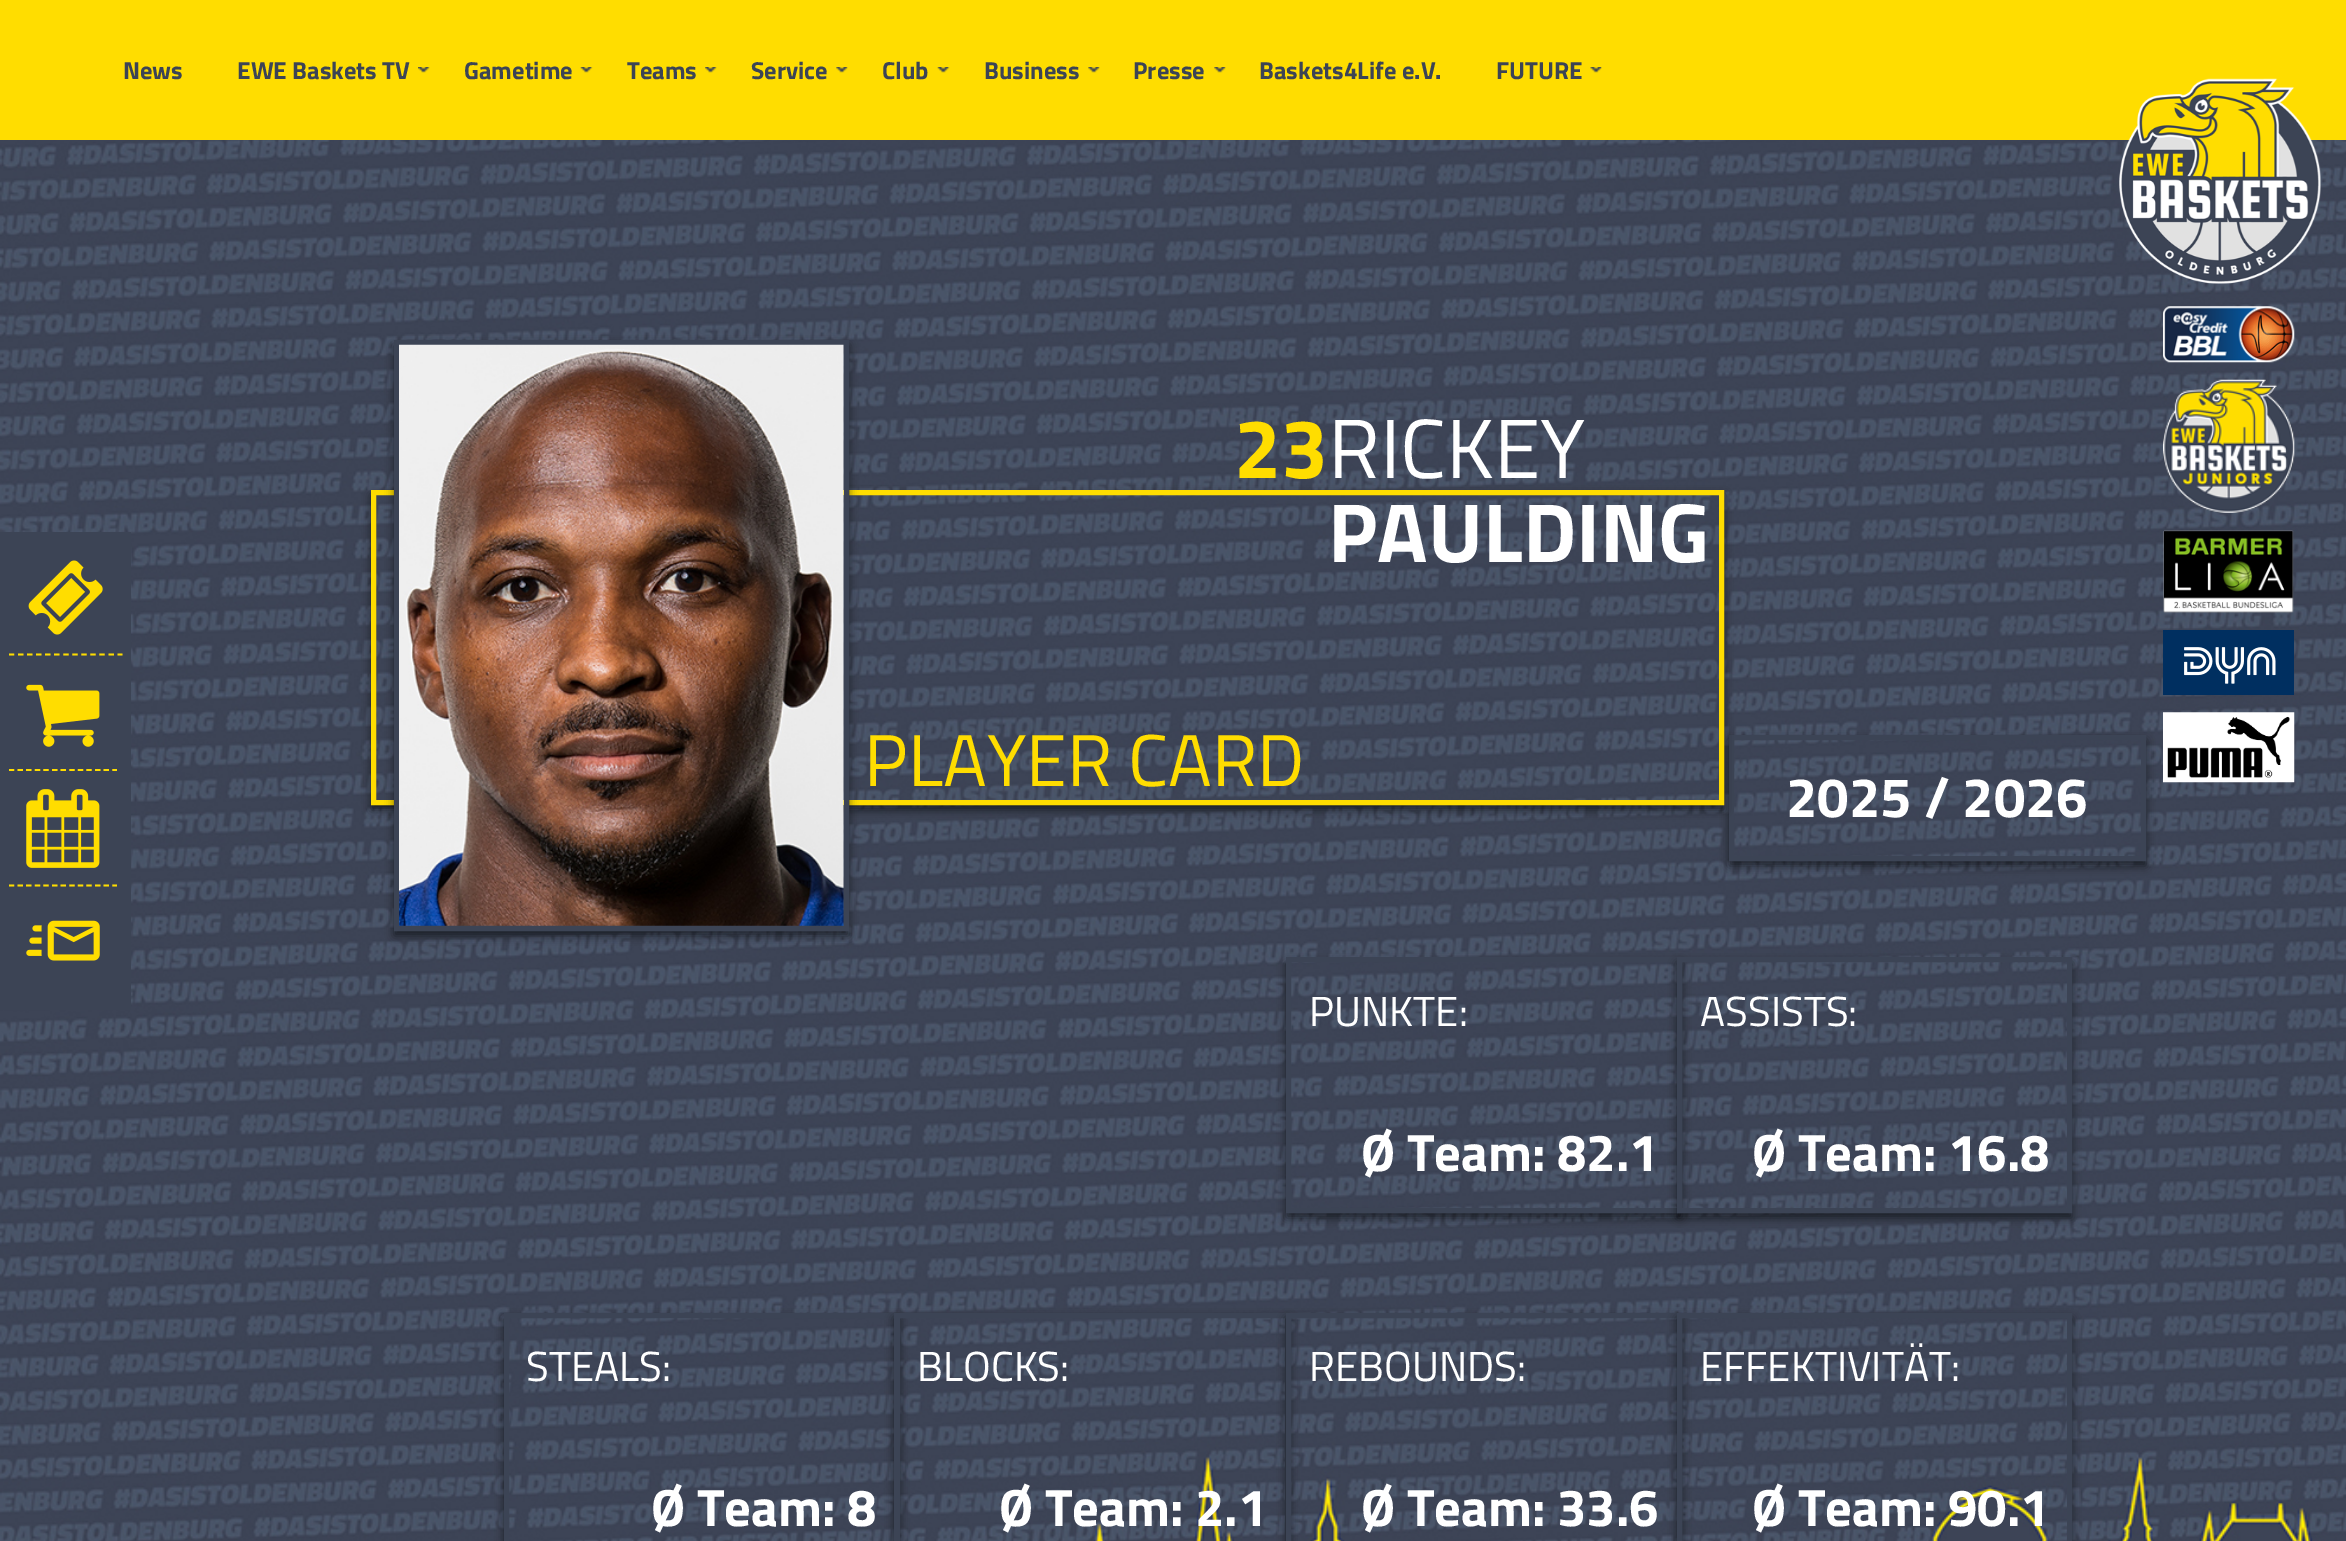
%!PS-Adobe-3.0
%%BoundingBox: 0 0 2346 1541
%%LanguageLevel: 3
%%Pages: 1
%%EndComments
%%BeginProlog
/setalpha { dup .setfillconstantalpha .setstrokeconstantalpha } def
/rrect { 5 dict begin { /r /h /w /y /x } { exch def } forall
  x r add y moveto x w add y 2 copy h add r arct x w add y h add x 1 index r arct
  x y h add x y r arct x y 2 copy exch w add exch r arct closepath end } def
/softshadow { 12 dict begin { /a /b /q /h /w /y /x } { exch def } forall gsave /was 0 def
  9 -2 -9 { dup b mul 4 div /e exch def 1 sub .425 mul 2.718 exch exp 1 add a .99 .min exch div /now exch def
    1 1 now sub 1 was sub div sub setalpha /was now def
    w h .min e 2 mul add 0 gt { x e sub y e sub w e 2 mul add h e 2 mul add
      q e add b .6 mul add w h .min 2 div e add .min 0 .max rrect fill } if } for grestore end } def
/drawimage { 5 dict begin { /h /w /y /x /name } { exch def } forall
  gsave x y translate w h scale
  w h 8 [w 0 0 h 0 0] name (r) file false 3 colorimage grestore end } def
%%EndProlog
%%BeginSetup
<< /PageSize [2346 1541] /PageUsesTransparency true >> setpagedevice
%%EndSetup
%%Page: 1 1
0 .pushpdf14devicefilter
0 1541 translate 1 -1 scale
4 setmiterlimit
1 setgray
0 0 2346 1541 rectfill
1 0.867 0 setrgbcolor
0 0 2346 140 rectfill
(images/1.raw) 418 67 12 6 drawimage
(images/2.raw) 580 67 13 6 drawimage
(images/3.raw) 705 67 12 6 drawimage
(images/4.raw) 836 67 12 6 drawimage
(images/5.raw) 937 67 13 6 drawimage
(images/4.raw) 1088 67 12 6 drawimage
(images/4.raw) 1214 67 12 6 drawimage
(images/6.raw) 1590 67 12 6 drawimage
(images/12.raw) 0 140 2346 1401 drawimage
(images/7.raw) 2119 78 202 206 drawimage
0.235 0.267 0.333 setrgbcolor
0 532 131 478 rectfill
1 0.867 0 setrgbcolor
1.8 setlinewidth
[5.25 3.8] 0 setdash
newpath 9 654.5 moveto 122.5 654.5 lineto stroke
(images/8.raw) 28 560 75 75 drawimage
[5.25 3.36] 0 setdash
newpath 9 770 moveto 117 770 lineto stroke
(images/9.raw) 26 684 74 63 drawimage
newpath 9 885.5 moveto 117 885.5 lineto stroke
(images/10.raw) 26 789 74 79 drawimage
(images/11.raw) 26 920 74 41 drawimage
gsave
newpath 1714 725 moveto 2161 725 lineto 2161 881 lineto 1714 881 lineto closepath 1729 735 moveto 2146 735 lineto 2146 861 lineto 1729 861 lineto closepath eoclip newpath
0 setgray
1729 740 417 126 0 4.5 0.55 softshadow
grestore
0.235 0.267 0.333 setrgbcolor
5 setlinewidth
[] 0 setdash
1731.5 737.5 412 121 rectstroke
gsave
newpath 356 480 moveto 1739 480 lineto 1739 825 lineto 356 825 lineto closepath 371 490 moveto 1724 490 lineto 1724 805 lineto 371 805 lineto closepath eoclip newpath
0 setgray
371 495 1353 315 0 4.5 0.55 softshadow
grestore
1 0.867 0 setrgbcolor
373.5 492.5 1348 310 rectstroke
0 setgray
394 345 455 591 0 4.5 0.55 softshadow
0.235 0.267 0.333 setrgbcolor
396.5 342.5 450 586 rectstroke
(images/13.raw) 399 344 445 582 drawimage
gsave
newpath 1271 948 moveto 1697 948 lineto 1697 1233 lineto 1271 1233 lineto closepath 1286 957 moveto 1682 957 lineto 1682 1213 lineto 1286 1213 lineto closepath eoclip newpath
0 setgray
1286 963 396 255 0 4.5 0.55 softshadow
grestore
1288.5 959.5 391 251 rectstroke
gsave
newpath 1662 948 moveto 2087 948 lineto 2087 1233 lineto 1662 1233 lineto closepath 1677 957 moveto 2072 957 lineto 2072 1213 lineto 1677 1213 lineto closepath eoclip newpath
0 setgray
1677 963 395 255 0 4.5 0.55 softshadow
grestore
1679.5 959.5 390 251 rectstroke
gsave
newpath 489 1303 moveto 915 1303 lineto 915 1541 lineto 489 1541 lineto closepath 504 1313 moveto 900 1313 lineto 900 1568 lineto 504 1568 lineto closepath eoclip newpath
0 setgray
504 1318 396 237 0 4.5 0.55 softshadow
grestore
506.5 1315.5 391 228 rectstroke
gsave
newpath 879 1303 moveto 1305 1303 lineto 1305 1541 lineto 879 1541 lineto closepath 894 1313 moveto 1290 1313 lineto 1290 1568 lineto 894 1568 lineto closepath eoclip newpath
0 setgray
894 1318 396 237 0 4.5 0.55 softshadow
grestore
896.5 1315.5 391 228 rectstroke
gsave
newpath 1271 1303 moveto 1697 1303 lineto 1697 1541 lineto 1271 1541 lineto closepath 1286 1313 moveto 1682 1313 lineto 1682 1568 lineto 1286 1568 lineto closepath eoclip newpath
0 setgray
1286 1318 396 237 0 4.5 0.55 softshadow
grestore
1288.5 1315.5 391 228 rectstroke
gsave
newpath 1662 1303 moveto 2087 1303 lineto 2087 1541 lineto 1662 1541 lineto closepath 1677 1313 moveto 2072 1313 lineto 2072 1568 lineto 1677 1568 lineto closepath eoclip newpath
0 setgray
1677 1318 395 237 0 4.5 0.55 softshadow
grestore
1679.5 1315.5 390 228 rectstroke
(images/14.raw) 2163 306 132 57 drawimage
(images/15.raw) 2163 379 132 134 drawimage
(images/16.raw) 2163 530 131 83 drawimage
(images/17.raw) 2163 630 131 65 drawimage
(images/18.raw) 2163 712 132 71 drawimage
/TitilliumWeb-Bold [24.5 0 0 -24.5 0 0] selectfont
123 79 moveto (News) show
237 79 moveto (EWE Baskets TV) show
464 79 moveto (Gametime) show
627 79 moveto (Teams) show
751 79 moveto (Service) show
882 79 moveto (Club) show
984 79 moveto (Business) show
1133 79 moveto (Presse) show
1259 79 moveto (Baskets4Life e.V.) show
1496 79 moveto (FUTURE) show
/TitilliumWeb-Bold [84 0 0 -84 0 0] selectfont
1 0.867 0 setrgbcolor
1234 478 moveto (23) show
/TitilliumWeb-Regular [84 0 0 -84 0 0] selectfont
1 setgray
1328 478 moveto (RICKEY) show
/TitilliumWeb-Bold [84 0 0 -84 0 0] selectfont
1328 562 moveto (PAULDING) show
/TitilliumWeb-Regular [73.5 0 0 -73.5 0 0] selectfont
1 0.867 0 setrgbcolor
864 786 moveto (PLAYER CARD) show
/TitilliumWeb-Bold [56 0 0 -56 0 0] selectfont
1 setgray
1786 817 moveto (2025 / 2026) show
/TitilliumWeb-Regular [42 0 0 -42 0 0] selectfont
1309 1026 moveto (PUNKTE:) show
/TitilliumWeb-Bold [52.5 0 0 -52.5 0 0] selectfont
1361 1171 moveto (Ø Team: 82.1) show
/TitilliumWeb-Regular [42 0 0 -42 0 0] selectfont
1700 1026 moveto (ASSISTS:) show
/TitilliumWeb-Bold [52.5 0 0 -52.5 0 0] selectfont
1752 1171 moveto (Ø Team: 16.8) show
/TitilliumWeb-Regular [42 0 0 -42 0 0] selectfont
526 1381 moveto (STEALS:) show
/TitilliumWeb-Bold [52.5 0 0 -52.5 0 0] selectfont
651 1526 moveto (Ø Team: 8) show
/TitilliumWeb-Regular [42 0 0 -42 0 0] selectfont
917 1381 moveto (BLOCKS:) show
/TitilliumWeb-Bold [52.5 0 0 -52.5 0 0] selectfont
999 1526 moveto (Ø Team: 2.1) show
/TitilliumWeb-Regular [42 0 0 -42 0 0] selectfont
1309 1381 moveto (REBOUNDS:) show
/TitilliumWeb-Bold [52.5 0 0 -52.5 0 0] selectfont
1361 1526 moveto (Ø Team: 33.6) show
/TitilliumWeb-Regular [42 0 0 -42 0 0] selectfont
1700 1381 moveto (EFFEKTIVITÄT:) show
/TitilliumWeb-Bold [52.5 0 0 -52.5 0 0] selectfont
1752 1526 moveto (Ø Team: 90.1) show
.poppdf14devicefilter showpage
%%EOF
